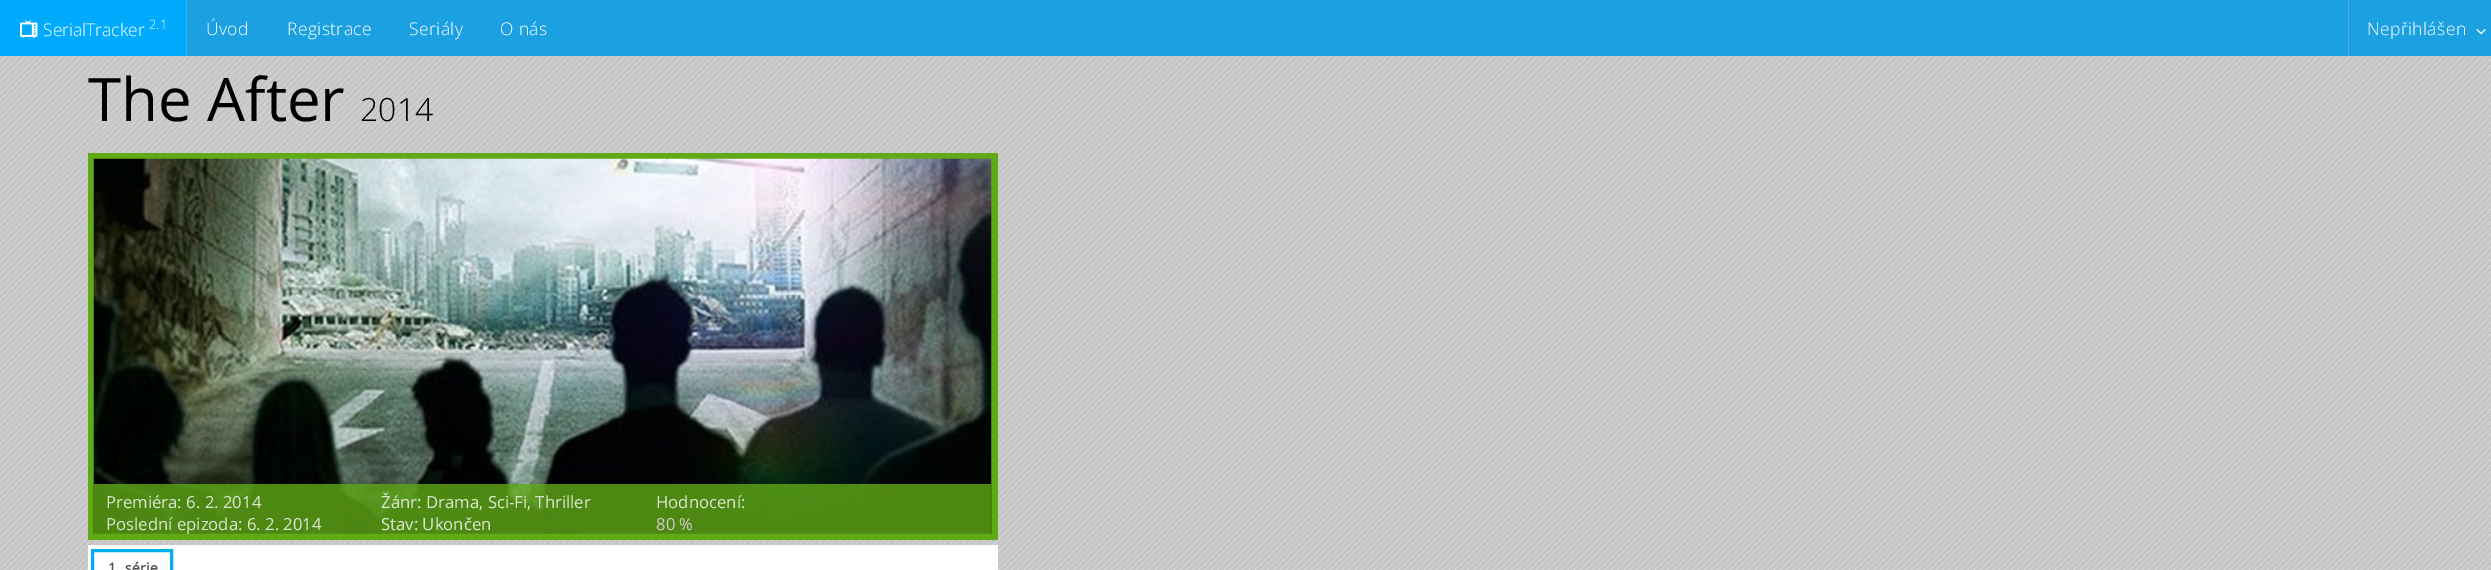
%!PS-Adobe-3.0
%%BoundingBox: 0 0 2491 570
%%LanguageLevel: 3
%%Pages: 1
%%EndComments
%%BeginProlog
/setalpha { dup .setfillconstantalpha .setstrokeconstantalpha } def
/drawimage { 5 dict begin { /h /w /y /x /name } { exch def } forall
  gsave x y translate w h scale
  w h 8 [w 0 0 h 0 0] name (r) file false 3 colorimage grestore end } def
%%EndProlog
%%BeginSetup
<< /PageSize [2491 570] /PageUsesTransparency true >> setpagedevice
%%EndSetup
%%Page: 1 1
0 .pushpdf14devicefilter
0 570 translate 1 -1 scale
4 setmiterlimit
0.106 0.631 0.886 setrgbcolor
0 0 2491 570 rectfill
0 0.667 0.992 setrgbcolor
0 0 186 56 rectfill
(images/1.raw) 20 19 18 19 drawimage
0.314 0.682 0.859 setrgbcolor
186 0 1 56 rectfill
2348 0 1 56 rectfill
(images/2.raw) 2476 29 10 6 drawimage
0.773 setgray
0 56 2491 514 rectfill
(images/3.raw) 0 56 2491 514 drawimage
0.376 0.663 0.09 setrgbcolor
88 153 910 387 rectfill
(images/4.raw) 93 158 899 376 drawimage
0.8 setalpha
94 484 897 50 rectfill
1 setalpha
1 setgray
88 545 910 25 rectfill
0 0.686 0.941 setrgbcolor
3 setlinewidth
92.5 550.5 79 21 rectstroke
/OpenSans-Light [17.5 0 0 -17.5 0 0] selectfont
1 setgray
43 36 moveto (SerialTracker) show
/OpenSans-Light [13 0 0 -13 0 0] selectfont
149 29 moveto (2.1) show
/OpenSans-Light [17.5 0 0 -17.5 0 0] selectfont
206 35 moveto 0.4 0 (Úvod) ashow
287 35 moveto 0.4 0 (Registrace) ashow
409 35 moveto 0.4 0 (Seriály) ashow
500 35 moveto 0.4 0 (O nás) ashow
2367 35 moveto 0.4 0 (Nepřihlášen) ashow
/OpenSans-Regular [60 0 0 -60 0 0] selectfont
0 setgray
88 121 moveto (The After) show
/OpenSans-Light [32 0 0 -32 0 0] selectfont
360 121 moveto (2014) show
/OpenSans-Regular [16.7 0 0 -16.7 0 0] selectfont
0.863 0.906 0.816 setrgbcolor
106 508 moveto (Premiéra: 6. 2. 2014) show
106 530 moveto (Poslední epizoda: 6. 2. 2014) show
381 508 moveto (Žánr:) show
426 508 moveto (Drama, Sci-Fi, Thriller) show
381 530 moveto (Stav: Ukončen) show
656 508 moveto (Hodnocení:) show
0.8 setgray
656 530 moveto (80 %) show
/OpenSans-Bold [14 0 0 -14 0 0] selectfont
0.322 setgray
108 573 moveto 0.4 0 (1. série) ashow
.poppdf14devicefilter showpage
%%EOF
